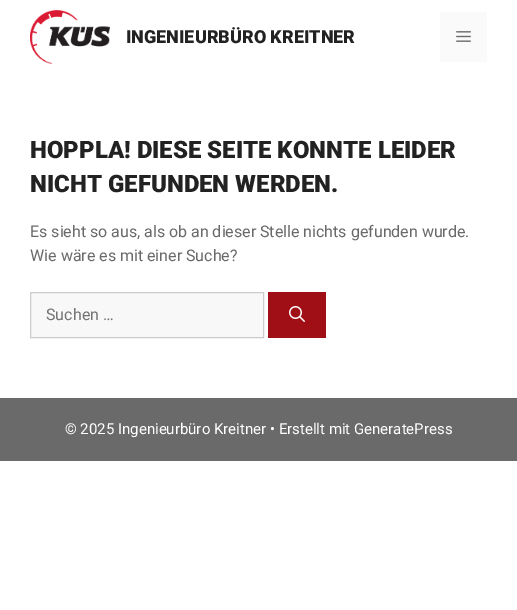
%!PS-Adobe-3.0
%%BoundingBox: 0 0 517 610
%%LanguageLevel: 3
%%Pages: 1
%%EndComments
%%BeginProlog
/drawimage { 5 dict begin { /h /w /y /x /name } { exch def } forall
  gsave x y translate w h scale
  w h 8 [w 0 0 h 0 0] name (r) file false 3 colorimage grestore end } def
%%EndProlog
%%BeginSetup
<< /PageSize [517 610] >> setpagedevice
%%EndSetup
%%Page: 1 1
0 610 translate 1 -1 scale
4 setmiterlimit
1 setgray
0 0 517 610 rectfill
(images/1.raw) 30 10 80 54 drawimage
0.98 setgray
440 12 47 50 rectfill
(images/2.raw) 456 31 15 11 drawimage
0.973 setgray
newpath 30.5 292.5 moveto 263.5 292.5 lineto 263.5 337.5 lineto 30.5 337.5 lineto closepath gsave fill grestore
0.8 setgray
stroke
0.631 0.059 0.086 setrgbcolor
268 292 58 46 rectfill
(images/3.raw) 289 306 16 16 drawimage
0.416 setgray
0 398 517 63 rectfill
/Roboto-Black [18 0 0 -18 0 0] selectfont
0.133 setgray
126 43 moveto (INGENIEURBÜRO KREITNER) show
/Roboto-Black [24 0 0 -24 0 0] selectfont
30 158 moveto (HOPPLA! DIESE SEITE KONNTE LEIDER) show
30 192 moveto (NICHT GEFUNDEN WERDEN.) show
/Roboto-Regular [16 0 0 -16 0 0] selectfont
0.416 setgray
30 237 moveto (Es sieht so aus, als ob an dieser Stelle nichts gefunden wurde.) show
30 261 moveto (Wie wäre es mit einer Suche?) show
0.459 setgray
46 320 moveto (Suchen …) show
/Roboto-Regular [15 0 0 -15 0 0] selectfont
1 setgray
65 434 moveto (© 2025 Ingenieurbüro Kreitner • Erstellt mit GeneratePress) show
showpage
%%EOF
